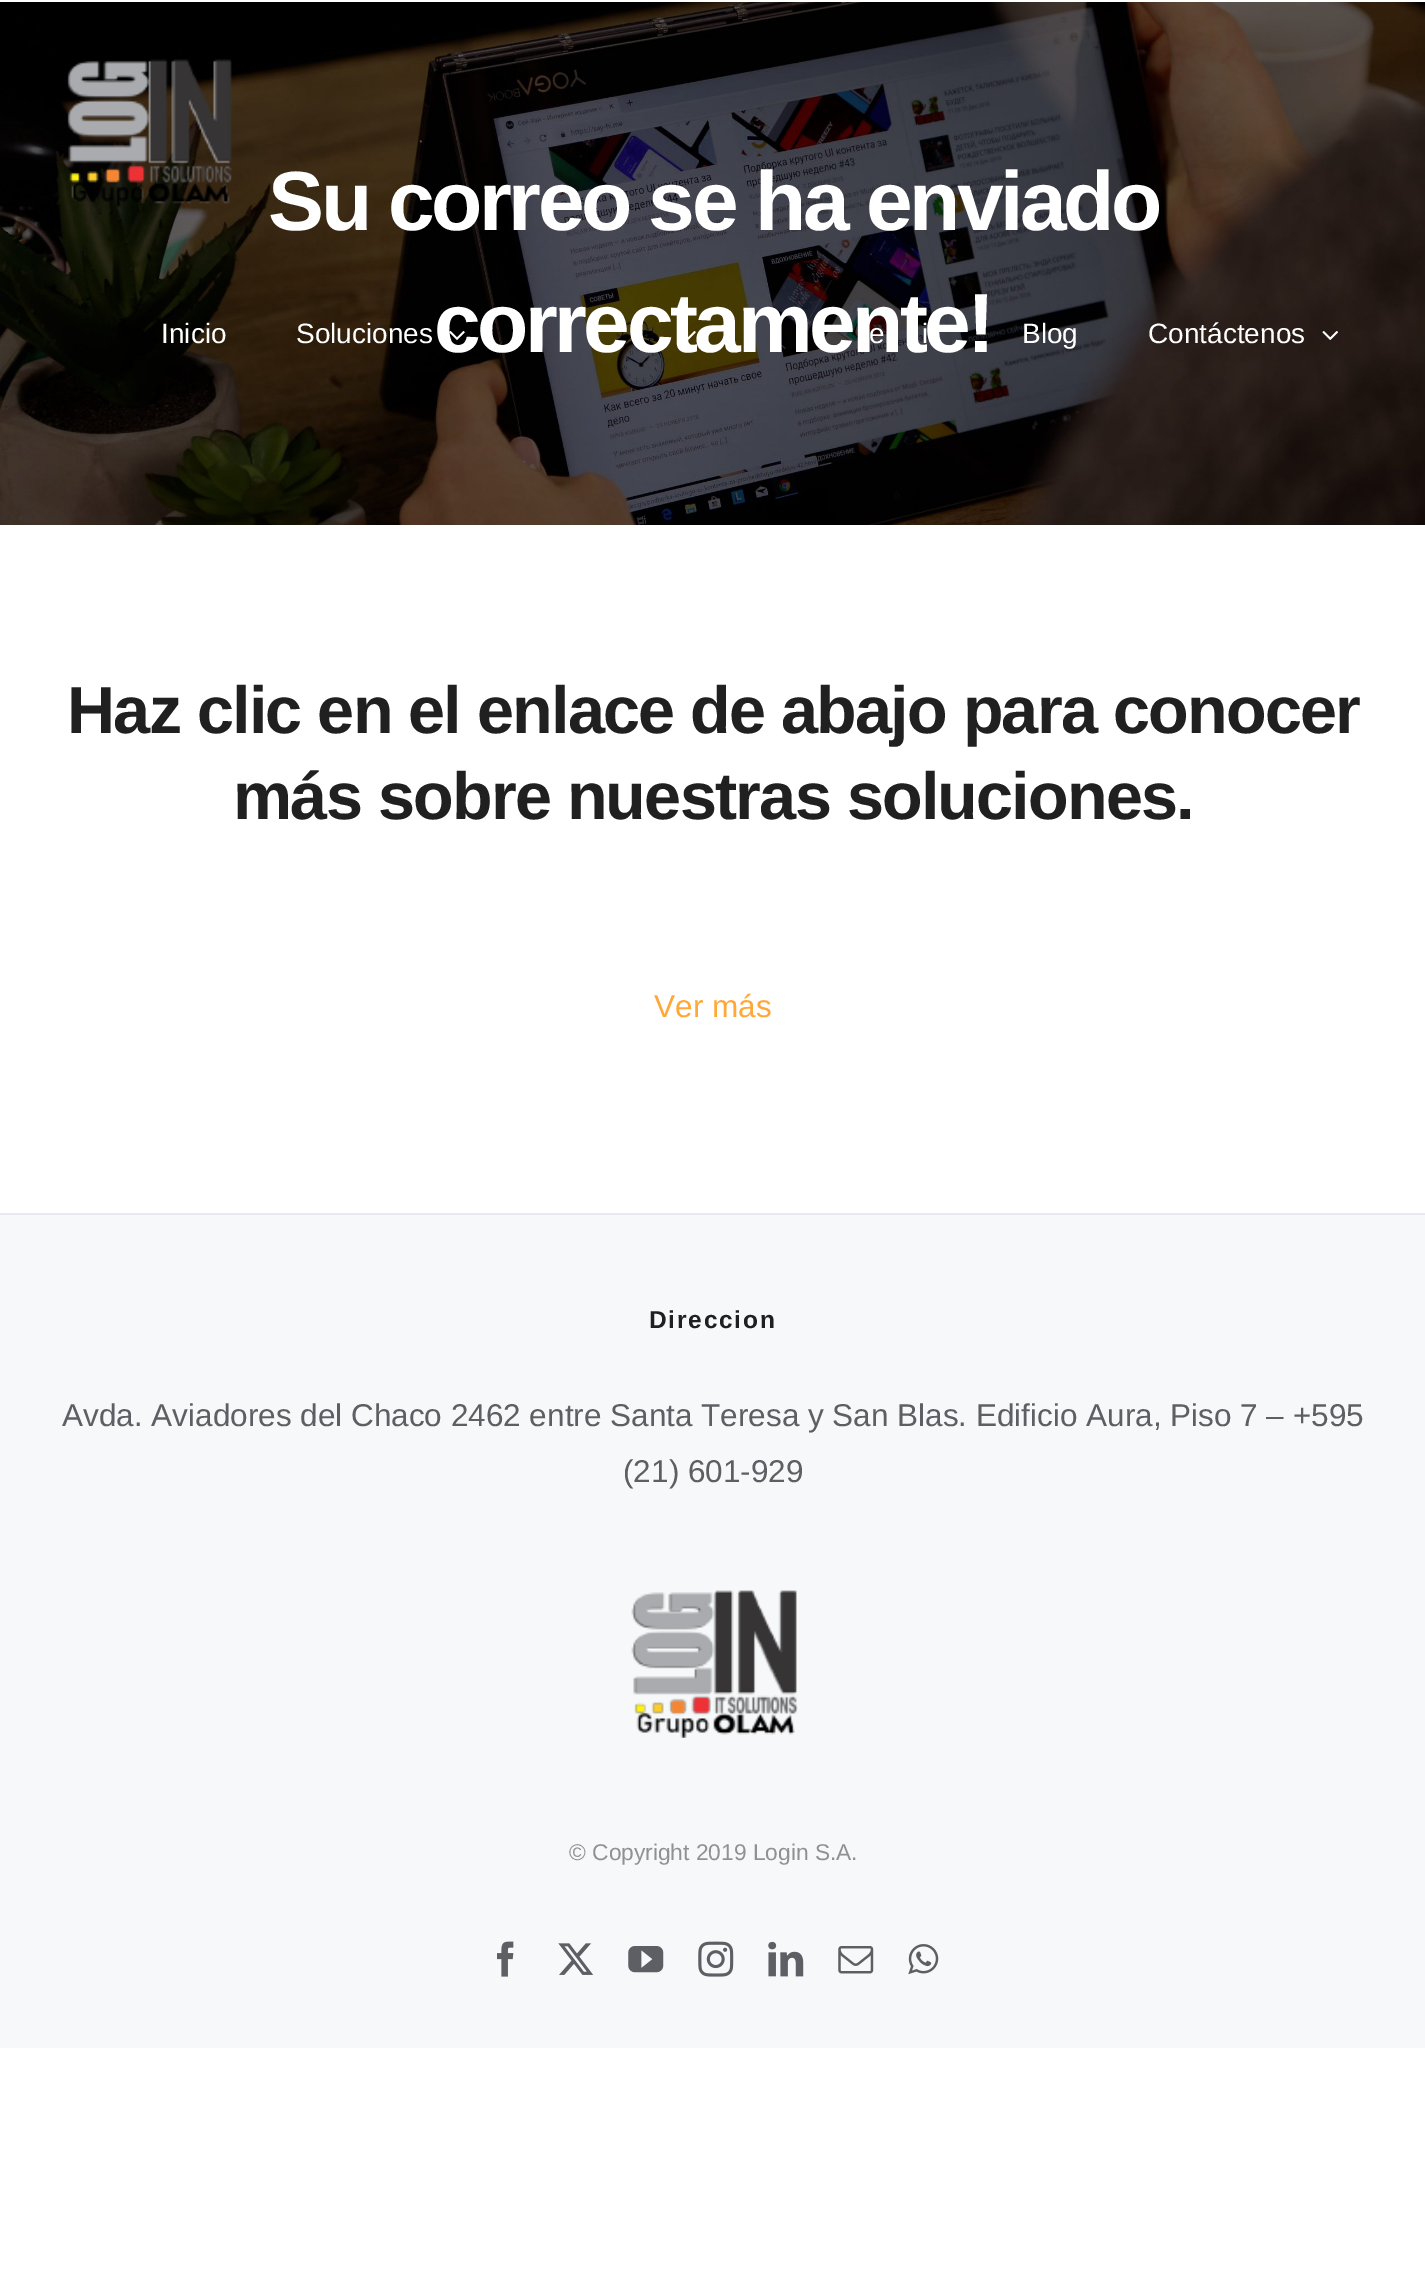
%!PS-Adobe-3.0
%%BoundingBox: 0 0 1425 2273
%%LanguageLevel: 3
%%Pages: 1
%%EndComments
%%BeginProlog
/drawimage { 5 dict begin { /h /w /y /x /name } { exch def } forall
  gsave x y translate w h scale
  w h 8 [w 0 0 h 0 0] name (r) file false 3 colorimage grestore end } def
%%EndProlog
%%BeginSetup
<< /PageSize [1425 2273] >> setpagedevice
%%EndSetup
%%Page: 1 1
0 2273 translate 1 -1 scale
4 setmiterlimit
1 setgray
0 0 1425 2273 rectfill
(images/1.raw) 0 2 1425 523 drawimage
(images/2.raw) 67 59 165 148 drawimage
(images/5.raw) 1322 331 16 9 drawimage
0.969 0.973 0.976 setrgbcolor
0 1215 1425 833 rectfill
0.91 0.918 0.941 setrgbcolor
0 1213 1425 2 rectfill
(images/6.raw) 631 1590 167 148 drawimage
(images/7.raw) 497 1941 17 36 drawimage
(images/8.raw) 558 1943 36 32 drawimage
(images/9.raw) 628 1946 36 27 drawimage
(images/10.raw) 698 1941 36 36 drawimage
(images/11.raw) 768 1941 36 36 drawimage
(images/12.raw) 838 1946 36 28 drawimage
(images/13.raw) 908 1944 31 31 drawimage
/LiberationSans-Bold [84 0 0 -84 0 0] selectfont
1 setgray
268 230 moveto -3.5 0 (Su correo se ha enviado) ashow
434 352 moveto -3.5 0 (correctamente!) ashow
/LiberationSans-Regular [28 0 0 -28 0 0] selectfont
161 343 moveto (Inicio) show
296 343 moveto (Soluciones) show
(images/3.raw) 449 331 16 9 drawimage
(images/4.raw) 688 331 8 9 drawimage
869 343 moveto (e) show
922 343 moveto (i) show
1022 343 moveto (Blog) show
1148 343 moveto (Contáctenos) show
/LiberationSans-Bold [66.5 0 0 -66.5 0 0] selectfont
0.125 setgray
67 733 moveto -1.75 0 (Haz clic en el enlace de abajo para conocer) ashow
233 819 moveto -1.75 0 (más sobre nuestras soluciones.) ashow
/LiberationSans-Regular [31.5 0 0 -31.5 0 0] selectfont
1 0.655 0.216 setrgbcolor
654 1017 moveto (Ver más) show
/LiberationSans-Bold [24.5 0 0 -24.5 0 0] selectfont
0.125 setgray
649 1328 moveto 1.75 0 (Direccion) ashow
/LiberationSans-Regular [31.5 0 0 -31.5 0 0] selectfont
0.365 0.373 0.392 setrgbcolor
62 1426 moveto (Avda. Aviadores del Chaco 2462 entre Santa Teresa y San Blas. Edificio Aura, Piso 7 – +595) show
623 1482 moveto (\(21\) 601-929) show
/LiberationSans-Regular [22.75 0 0 -22.75 0 0] selectfont
0.561 0.569 0.584 setrgbcolor
569 1860 moveto (© Copyright 2019 Login S.A.) show
showpage
%%EOF
